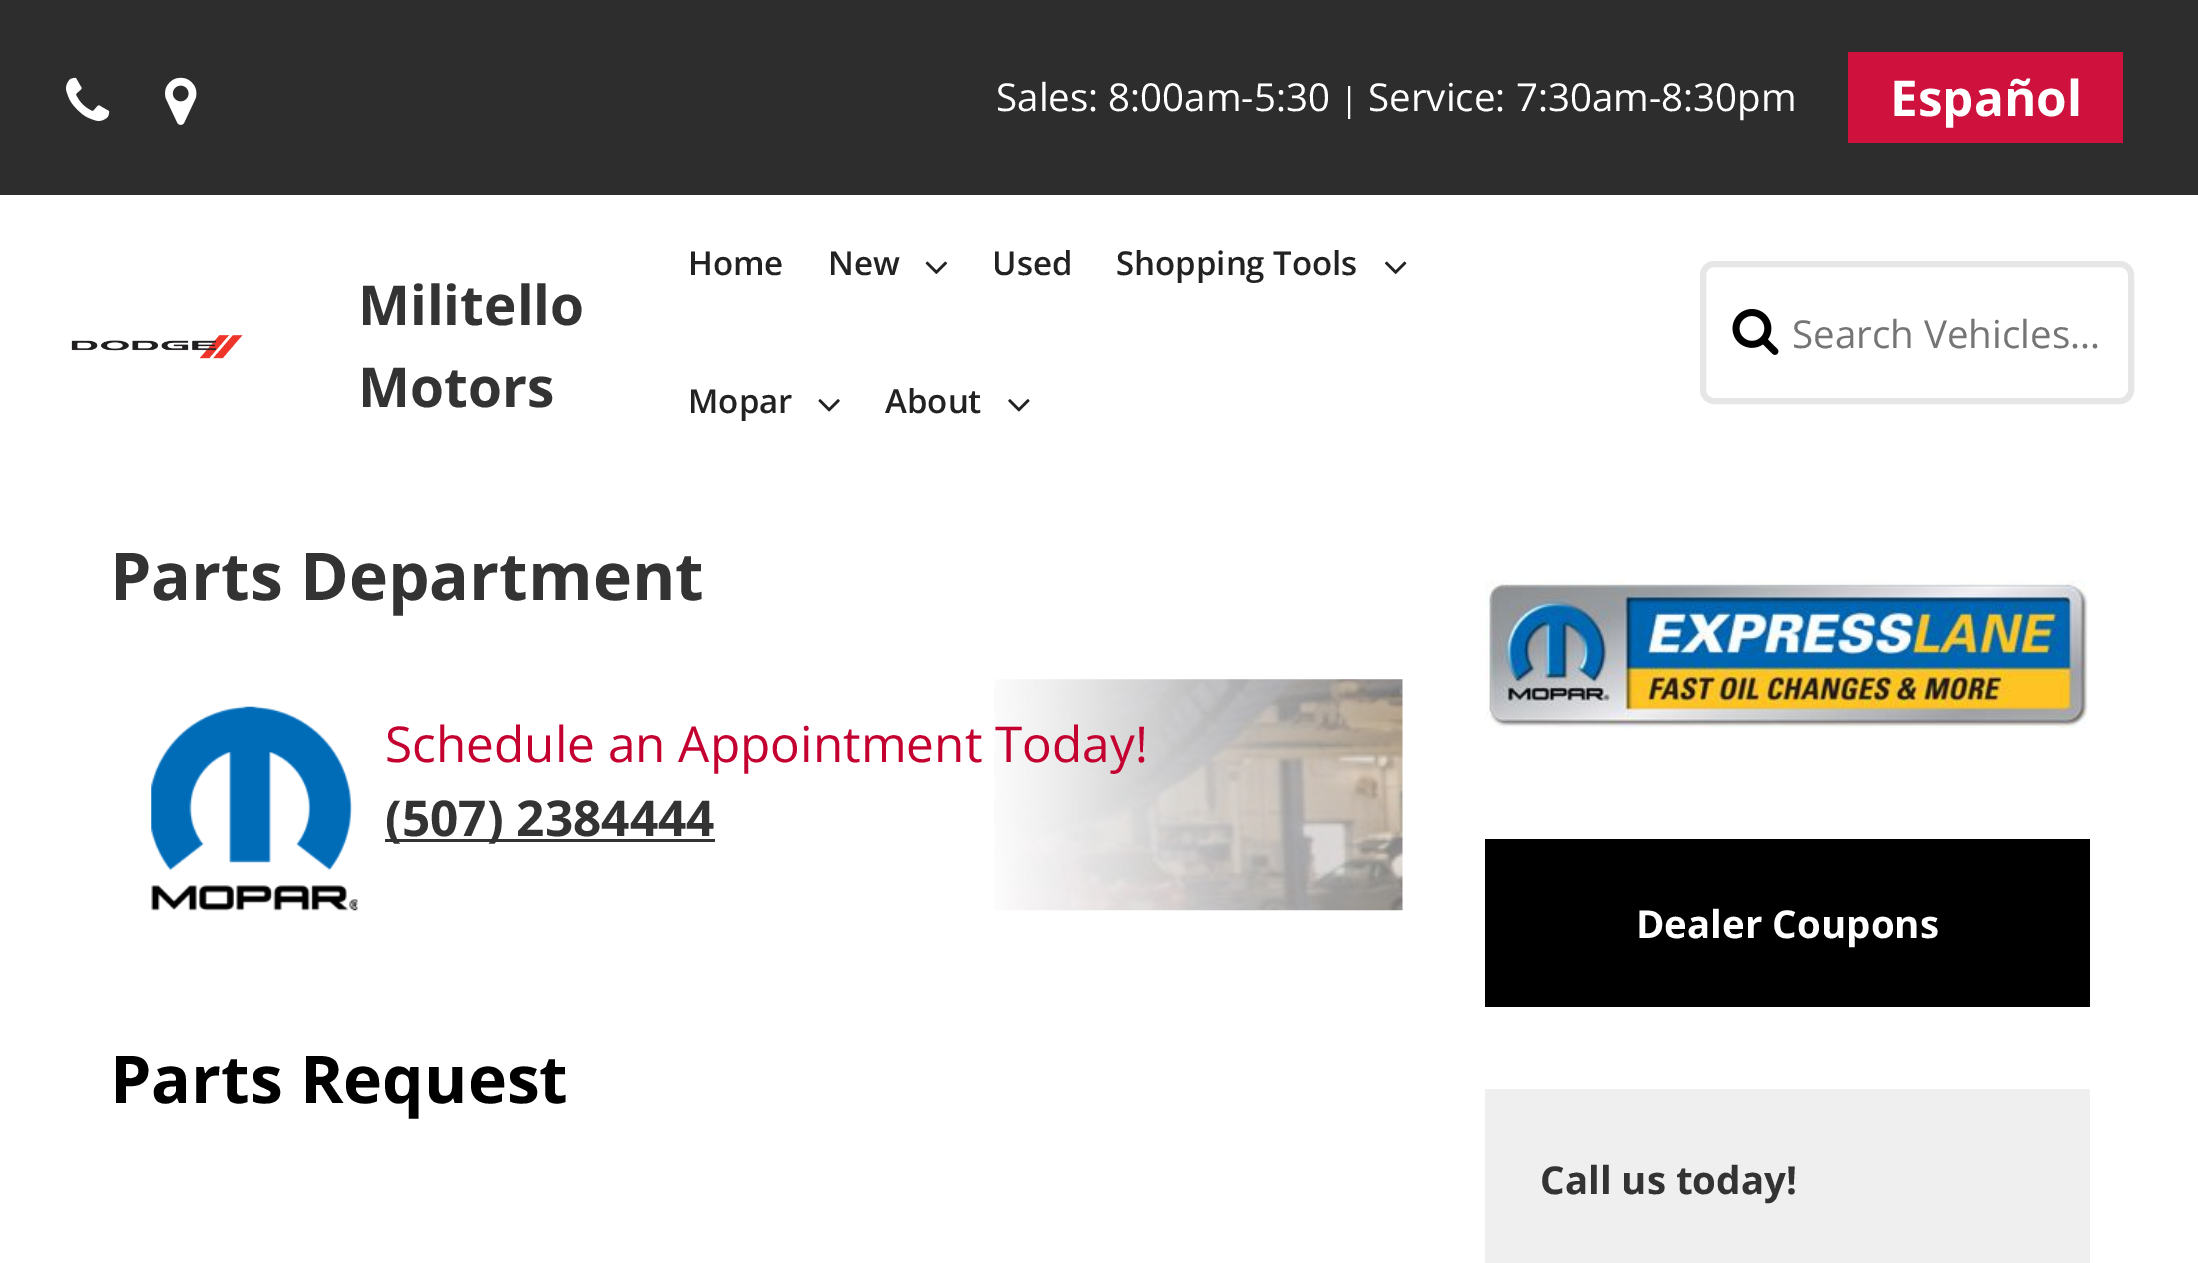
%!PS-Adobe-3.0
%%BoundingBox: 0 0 2198 1263
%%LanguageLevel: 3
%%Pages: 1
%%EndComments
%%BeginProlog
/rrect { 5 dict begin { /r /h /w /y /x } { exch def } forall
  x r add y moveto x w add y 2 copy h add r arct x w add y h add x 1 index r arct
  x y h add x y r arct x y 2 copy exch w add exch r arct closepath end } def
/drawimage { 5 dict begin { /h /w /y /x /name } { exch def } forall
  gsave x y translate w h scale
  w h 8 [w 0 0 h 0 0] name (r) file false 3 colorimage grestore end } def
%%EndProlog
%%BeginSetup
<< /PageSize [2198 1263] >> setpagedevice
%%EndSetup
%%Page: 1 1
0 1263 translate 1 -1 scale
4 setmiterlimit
1 setgray
0 0 2198 1263 rectfill
0.176 setgray
0 0 2198 195 rectfill
(images/1.raw) 66 77 44 44 drawimage
(images/2.raw) 165 77 32 48 drawimage
0.812 0.071 0.239 setrgbcolor
1848 52 275 91 rectfill
(images/3.raw) 71 335 172 24 drawimage
(images/4.raw) 925 261 22 13 drawimage
(images/5.raw) 1385 261 22 13 drawimage
(images/6.raw) 818 399 22 13 drawimage
(images/7.raw) 1008 399 22 13 drawimage
0.902 setgray
6 setlinewidth
1703 264 428 137 11 rrect stroke
(images/8.raw) 1732 309 47 46 drawimage
(images/9.raw) 994 679 409 232 drawimage
(images/10.raw) 151 706 207 205 drawimage
0.2 setgray
385 839 330 3 rectfill
(images/11.raw) 1485 580 603 149 drawimage
0 setgray
1485 839 605 168 rectfill
0.937 setgray
1485 1089 605 174 rectfill
/OpenSans-Regular [38.5 0 0 -38.5 0 0] selectfont
1 setgray
996 111 moveto (Sales: 8:00am-5:30) show
/OpenSans-Regular [33 0 0 -33 0 0] selectfont
1340 111 moveto (|) show
/OpenSans-Regular [38.5 0 0 -38.5 0 0] selectfont
1368 111 moveto (Service: 7:30am-8:30pm) show
/OpenSans-Bold [49.5 0 0 -49.5 0 0] selectfont
1890 116 moveto (Español) show
/OpenSans-Bold [55 0 0 -55 0 0] selectfont
0.2 setgray
358 325 moveto (Militello) show
358 407 moveto (Motors) show
/OpenSans-SemiBold [33 0 0 -33 0 0] selectfont
0.133 setgray
688 275 moveto (Home) show
828 275 moveto (New) show
992 275 moveto (Used) show
1116 275 moveto (Shopping Tools) show
688 413 moveto (Mopar) show
885 413 moveto (About) show
/OpenSans-Regular [38.5 0 0 -38.5 0 0] selectfont
0.459 setgray
1792 348 moveto (Search Vehicles...) show
/OpenSans-Bold [66 0 0 -66 0 0] selectfont
0.2 setgray
110 600 moveto (Parts Department) show
/OpenSans-Regular [49.5 0 0 -49.5 0 0] selectfont
0.765 0 0.184 setrgbcolor
385 762 moveto (Schedule an Appointment Today!) show
/OpenSans-Bold [49.5 0 0 -49.5 0 0] selectfont
0.2 setgray
385 836 moveto (\(507\) 2384444) show
/OpenSans-Bold [66 0 0 -66 0 0] selectfont
0 setgray
110 1103 moveto (Parts Request) show
/OpenSans-Bold [38.5 0 0 -38.5 0 0] selectfont
1 setgray
1636 938 moveto (Dealer Coupons) show
0.2 setgray
1540 1194 moveto (Call us today!) show
showpage
%%EOF
